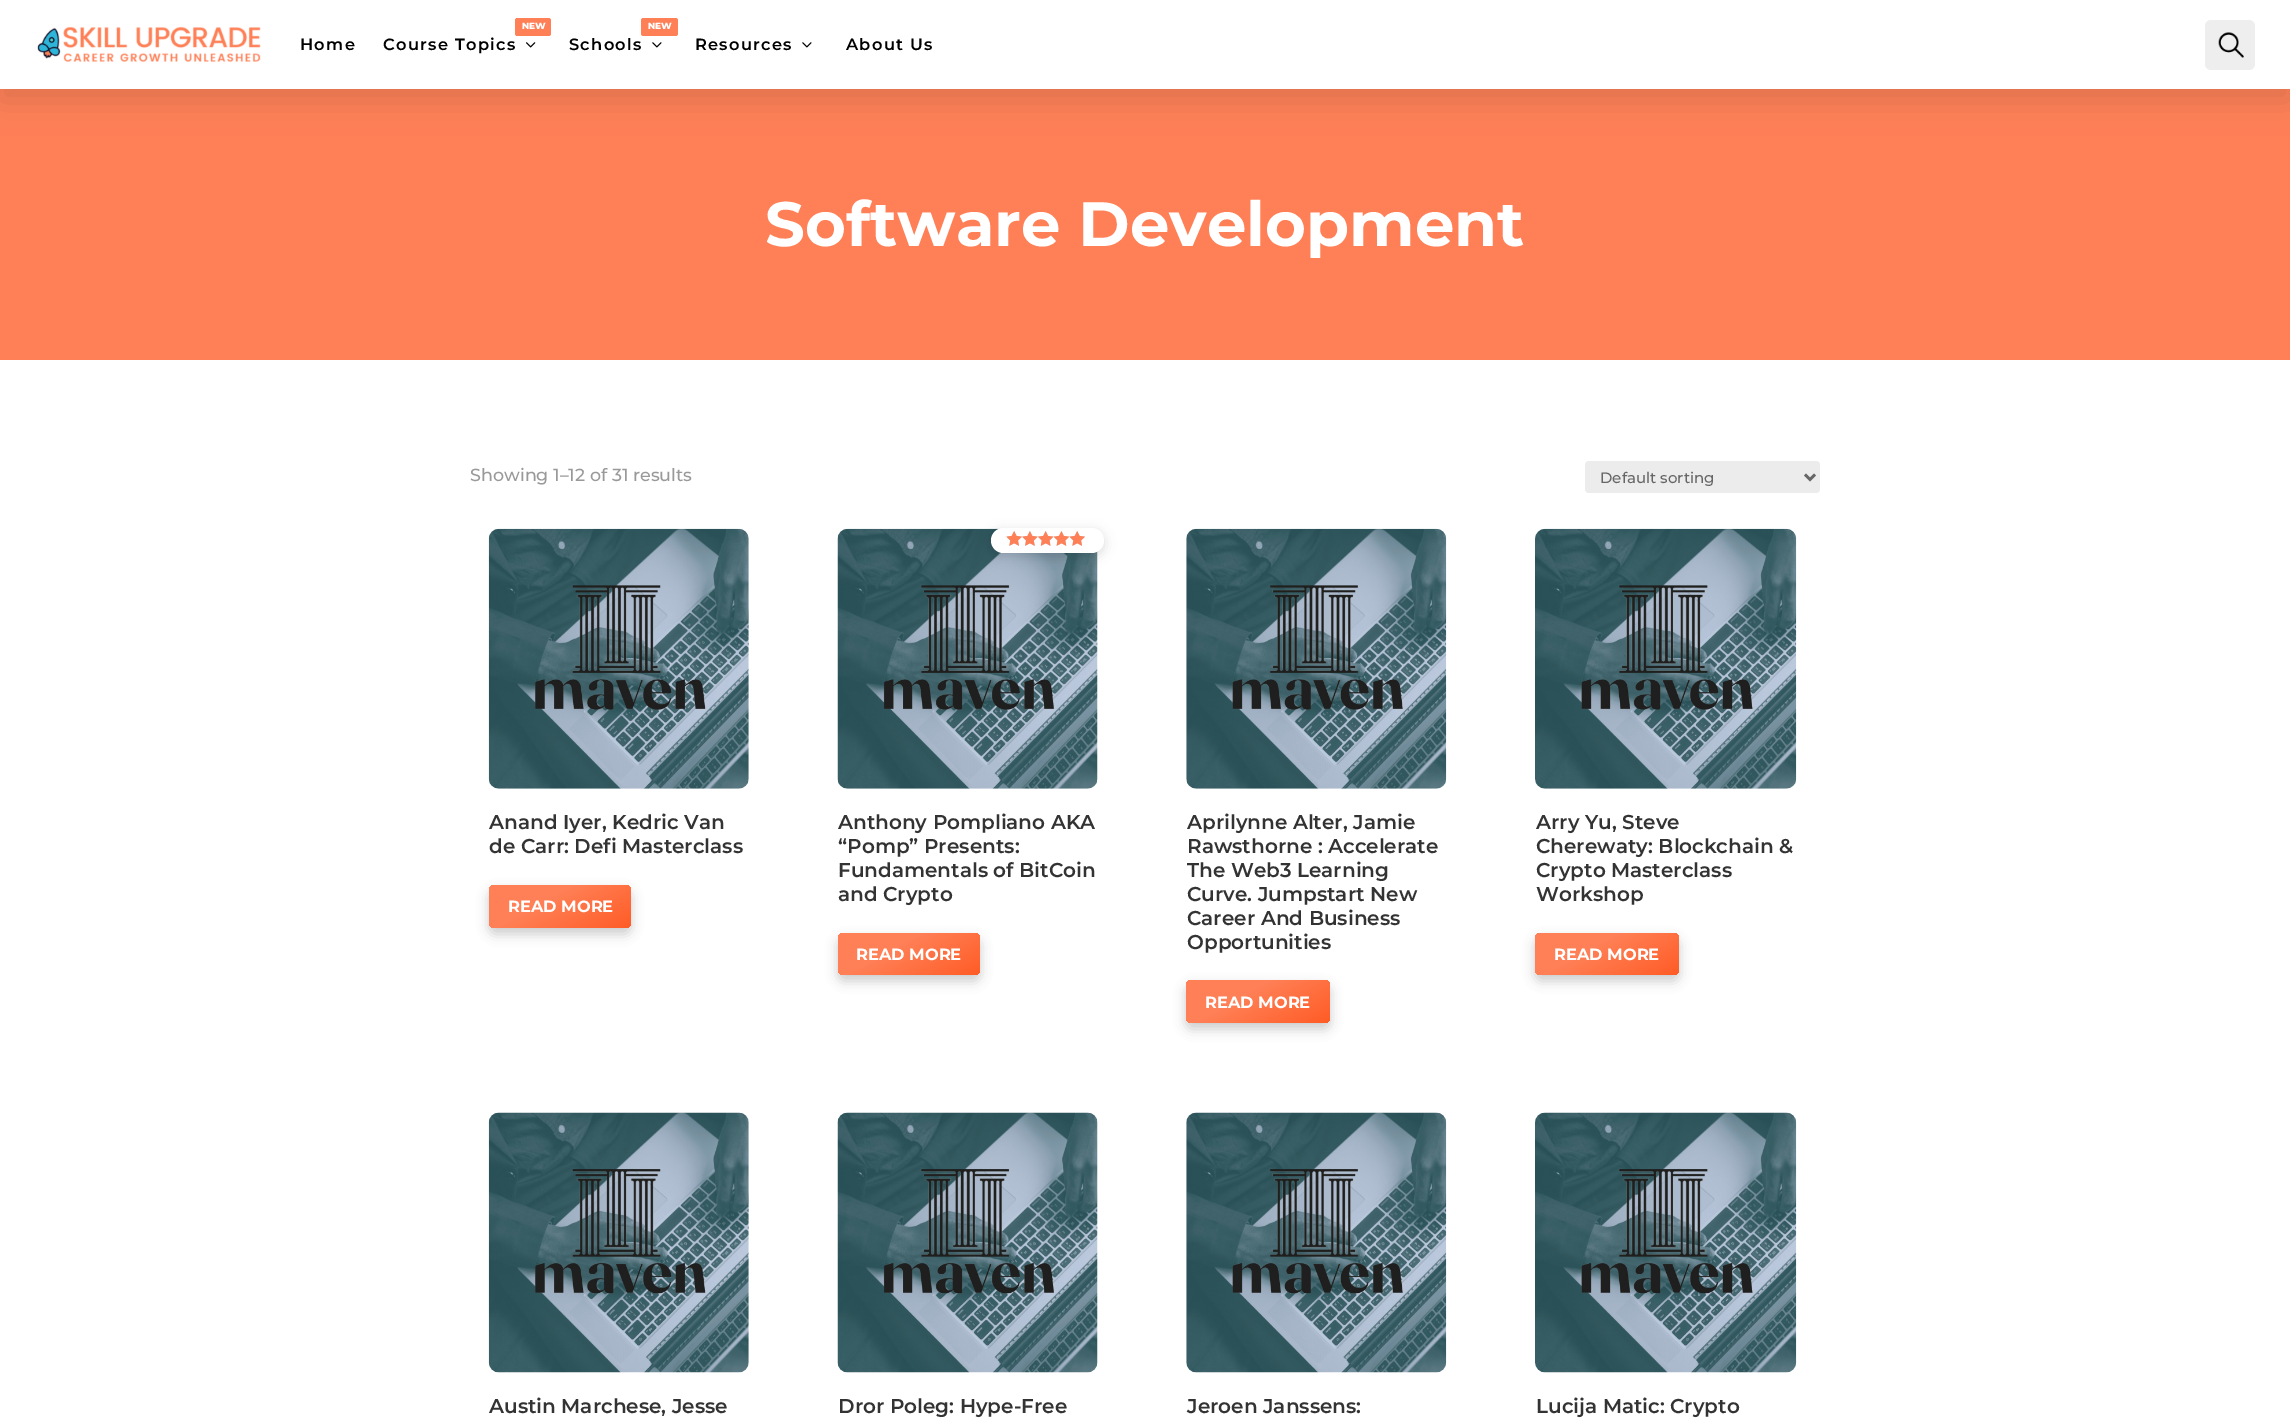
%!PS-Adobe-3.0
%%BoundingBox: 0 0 2290 1426
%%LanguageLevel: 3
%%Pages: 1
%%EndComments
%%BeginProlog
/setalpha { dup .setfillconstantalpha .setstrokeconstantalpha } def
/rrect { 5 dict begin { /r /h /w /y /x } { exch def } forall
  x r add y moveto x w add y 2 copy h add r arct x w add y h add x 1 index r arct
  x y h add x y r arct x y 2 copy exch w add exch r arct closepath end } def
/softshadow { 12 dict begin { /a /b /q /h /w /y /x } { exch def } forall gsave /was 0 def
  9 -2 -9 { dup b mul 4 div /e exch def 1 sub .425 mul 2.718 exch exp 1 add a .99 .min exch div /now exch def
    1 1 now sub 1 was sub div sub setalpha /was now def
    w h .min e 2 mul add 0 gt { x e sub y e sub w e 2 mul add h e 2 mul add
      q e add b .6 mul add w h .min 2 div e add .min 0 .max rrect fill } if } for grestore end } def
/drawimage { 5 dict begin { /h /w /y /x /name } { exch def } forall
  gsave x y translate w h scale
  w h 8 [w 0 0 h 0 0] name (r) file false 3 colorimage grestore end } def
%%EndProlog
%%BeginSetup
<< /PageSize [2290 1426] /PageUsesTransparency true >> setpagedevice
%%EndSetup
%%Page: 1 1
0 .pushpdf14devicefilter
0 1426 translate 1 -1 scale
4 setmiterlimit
1 setgray
0 0 2290 1426 rectfill
1 0.502 0.341 setrgbcolor
0 89 2290 271 rectfill
0 setgray
0 13 2290 88 0 15.5 0.12 softshadow
1 setgray
0 0 2290 89 rectfill
(images/1.raw) 37 26 224 36 drawimage
1 0.502 0.341 setrgbcolor
515 18 36 18 2.5 rrect fill
(images/2.raw) 526 42 10 6 drawimage
641 18 37 18 2.5 rrect fill
(images/3.raw) 652 42 10 6 drawimage
(images/3.raw) 802 42 10 6 drawimage
0.933 setgray
2205 20 50 50 6 rrect fill
(images/4.raw) 2218 32 26 26 drawimage
0.925 setgray
1585 461 235 32 4 rrect fill
0.4 setgray
2.5 setlinewidth
newpath 1805 474.5 moveto 1810 479.5 lineto 1815 474.5 lineto stroke
(images/5.raw) 488 528 261 261 drawimage
0 setgray
489 891 142 43 6 6 0.2 softshadow
gsave 489 885 142 43 6 rrect clip newpath
<< /ShadingType 2 /ColorSpace /DeviceRGB /Coords [534 860 586 953] /Extend [true true] /Function << /FunctionType 3 /Domain [0 1] /Functions [<< /FunctionType 2 /Domain [0 1] /C0 [1 0.502 0.341] /C1 [1 0.502 0.341] /N 1 >> << /FunctionType 2 /Domain [0 1] /C0 [1 0.502 0.341] /C1 [1 0.361 0.149] /N 1 >>] /Bounds [0.38] /Encode [0 1 0 1] >> >> shfill grestore
(images/8.raw) 837 528 261 261 drawimage
991 531 113 25 12.5 6 0.13 softshadow
1 setgray
991 528 113 25 12.5 rrect fill
(images/6.raw) 1006 531 79 15 drawimage
(images/7.raw) 1006 531 79 15 drawimage
0 setgray
838 939 142 42 6 6 0.2 softshadow
gsave 838 933 142 42 6 rrect clip newpath
<< /ShadingType 2 /ColorSpace /DeviceRGB /Coords [883 907 935 1000] /Extend [true true] /Function << /FunctionType 3 /Domain [0 1] /Functions [<< /FunctionType 2 /Domain [0 1] /C0 [1 0.502 0.341] /C1 [1 0.502 0.341] /N 1 >> << /FunctionType 2 /Domain [0 1] /C0 [1 0.502 0.341] /C1 [1 0.361 0.149] /N 1 >>] /Bounds [0.38] /Encode [0 1 0 1] >> >> shfill grestore
(images/9.raw) 1186 528 261 261 drawimage
1186 986 144 43 6 6 0.2 softshadow
gsave 1186 980 144 43 6 rrect clip newpath
<< /ShadingType 2 /ColorSpace /DeviceRGB /Coords [1232 955 1284 1048] /Extend [true true] /Function << /FunctionType 3 /Domain [0 1] /Functions [<< /FunctionType 2 /Domain [0 1] /C0 [1 0.502 0.341] /C1 [1 0.502 0.341] /N 1 >> << /FunctionType 2 /Domain [0 1] /C0 [1 0.502 0.341] /C1 [1 0.361 0.149] /N 1 >>] /Bounds [0.38] /Encode [0 1 0 1] >> >> shfill grestore
(images/10.raw) 1535 528 262 261 drawimage
1535 939 144 42 6 6 0.2 softshadow
gsave 1535 933 144 42 6 rrect clip newpath
<< /ShadingType 2 /ColorSpace /DeviceRGB /Coords [1581 907 1633 1000] /Extend [true true] /Function << /FunctionType 3 /Domain [0 1] /Functions [<< /FunctionType 2 /Domain [0 1] /C0 [1 0.502 0.341] /C1 [1 0.502 0.341] /N 1 >> << /FunctionType 2 /Domain [0 1] /C0 [1 0.502 0.341] /C1 [1 0.361 0.149] /N 1 >>] /Bounds [0.38] /Encode [0 1 0 1] >> >> shfill grestore
(images/11.raw) 488 1112 261 261 drawimage
(images/12.raw) 837 1112 261 261 drawimage
(images/13.raw) 1186 1112 261 261 drawimage
(images/14.raw) 1535 1112 262 261 drawimage
/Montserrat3-Thin [16.25 0 0 -16.25 0 0] selectfont
300 50 moveto 1.25 0 (Home) ashow
/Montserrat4-Thin [9 0 0 -9 0 0] selectfont
1 setgray
522 29 moveto (NEW) show
/Montserrat3-Thin [16.25 0 0 -16.25 0 0] selectfont
0 setgray
383 50 moveto 1.25 0 (Course Topics) ashow
/Montserrat4-Thin [9 0 0 -9 0 0] selectfont
1 setgray
648 29 moveto (NEW) show
/Montserrat3-Thin [16.25 0 0 -16.25 0 0] selectfont
0 setgray
569 50 moveto 1.25 0 (Schools) ashow
695 50 moveto 1.25 0 (Resources) ashow
846 50 moveto 1.25 0 (About Us) ashow
/Montserrat-Thin [62.5 0 0 -62.5 0 0] selectfont
1 setgray
765 246 moveto (Software Development) show
/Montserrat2-Thin [17.5 0 0 -17.5 0 0] selectfont
0.6 setgray
470 481 moveto (Showing 1–12 of 31 results) show
/Montserrat2-Thin [15 0 0 -15 0 0] selectfont
0.4 setgray
1600 483 moveto (Default sorting) show
/Montserrat3-Thin [20 0 0 -20 0 0] selectfont
0.2 setgray
489 829 moveto (Anand Iyer, Kedric Van) show
489 853 moveto (de Carr: Defi Masterclass) show
/Montserrat-Thin [16.25 0 0 -16.25 0 0] selectfont
1 setgray
508 912 moveto (READ MORE) show
/Montserrat3-Thin [20 0 0 -20 0 0] selectfont
0.2 setgray
838 829 moveto (Anthony Pompliano AKA) show
838 853 moveto (“Pomp” Presents:) show
838 877 moveto (Fundamentals of BitCoin) show
838 901 moveto (and Crypto) show
/Montserrat-Thin [16.25 0 0 -16.25 0 0] selectfont
1 setgray
856 960 moveto (READ MORE) show
/Montserrat3-Thin [20 0 0 -20 0 0] selectfont
0.2 setgray
1187 829 moveto (Aprilynne Alter, Jamie) show
1187 853 moveto (Rawsthorne : Accelerate) show
1187 877 moveto (The Web3 Learning) show
1187 901 moveto (Curve. Jumpstart New) show
1187 925 moveto (Career And Business) show
1187 949 moveto (Opportunities) show
/Montserrat-Thin [16.25 0 0 -16.25 0 0] selectfont
1 setgray
1205 1008 moveto (READ MORE) show
/Montserrat3-Thin [20 0 0 -20 0 0] selectfont
0.2 setgray
1536 829 moveto (Arry Yu, Steve) show
1536 853 moveto (Cherewaty: Blockchain &) show
1536 877 moveto (Crypto Masterclass) show
1536 901 moveto (Workshop) show
/Montserrat-Thin [16.25 0 0 -16.25 0 0] selectfont
1 setgray
1554 960 moveto (READ MORE) show
/Montserrat3-Thin [20 0 0 -20 0 0] selectfont
0.2 setgray
489 1413 moveto (Austin Marchese, Jesse) show
838 1413 moveto (Dror Poleg: Hype-Free) show
1187 1413 moveto (Jeroen Janssens:) show
1536 1413 moveto (Lucija Matic: Crypto) show
.poppdf14devicefilter showpage
%%EOF
